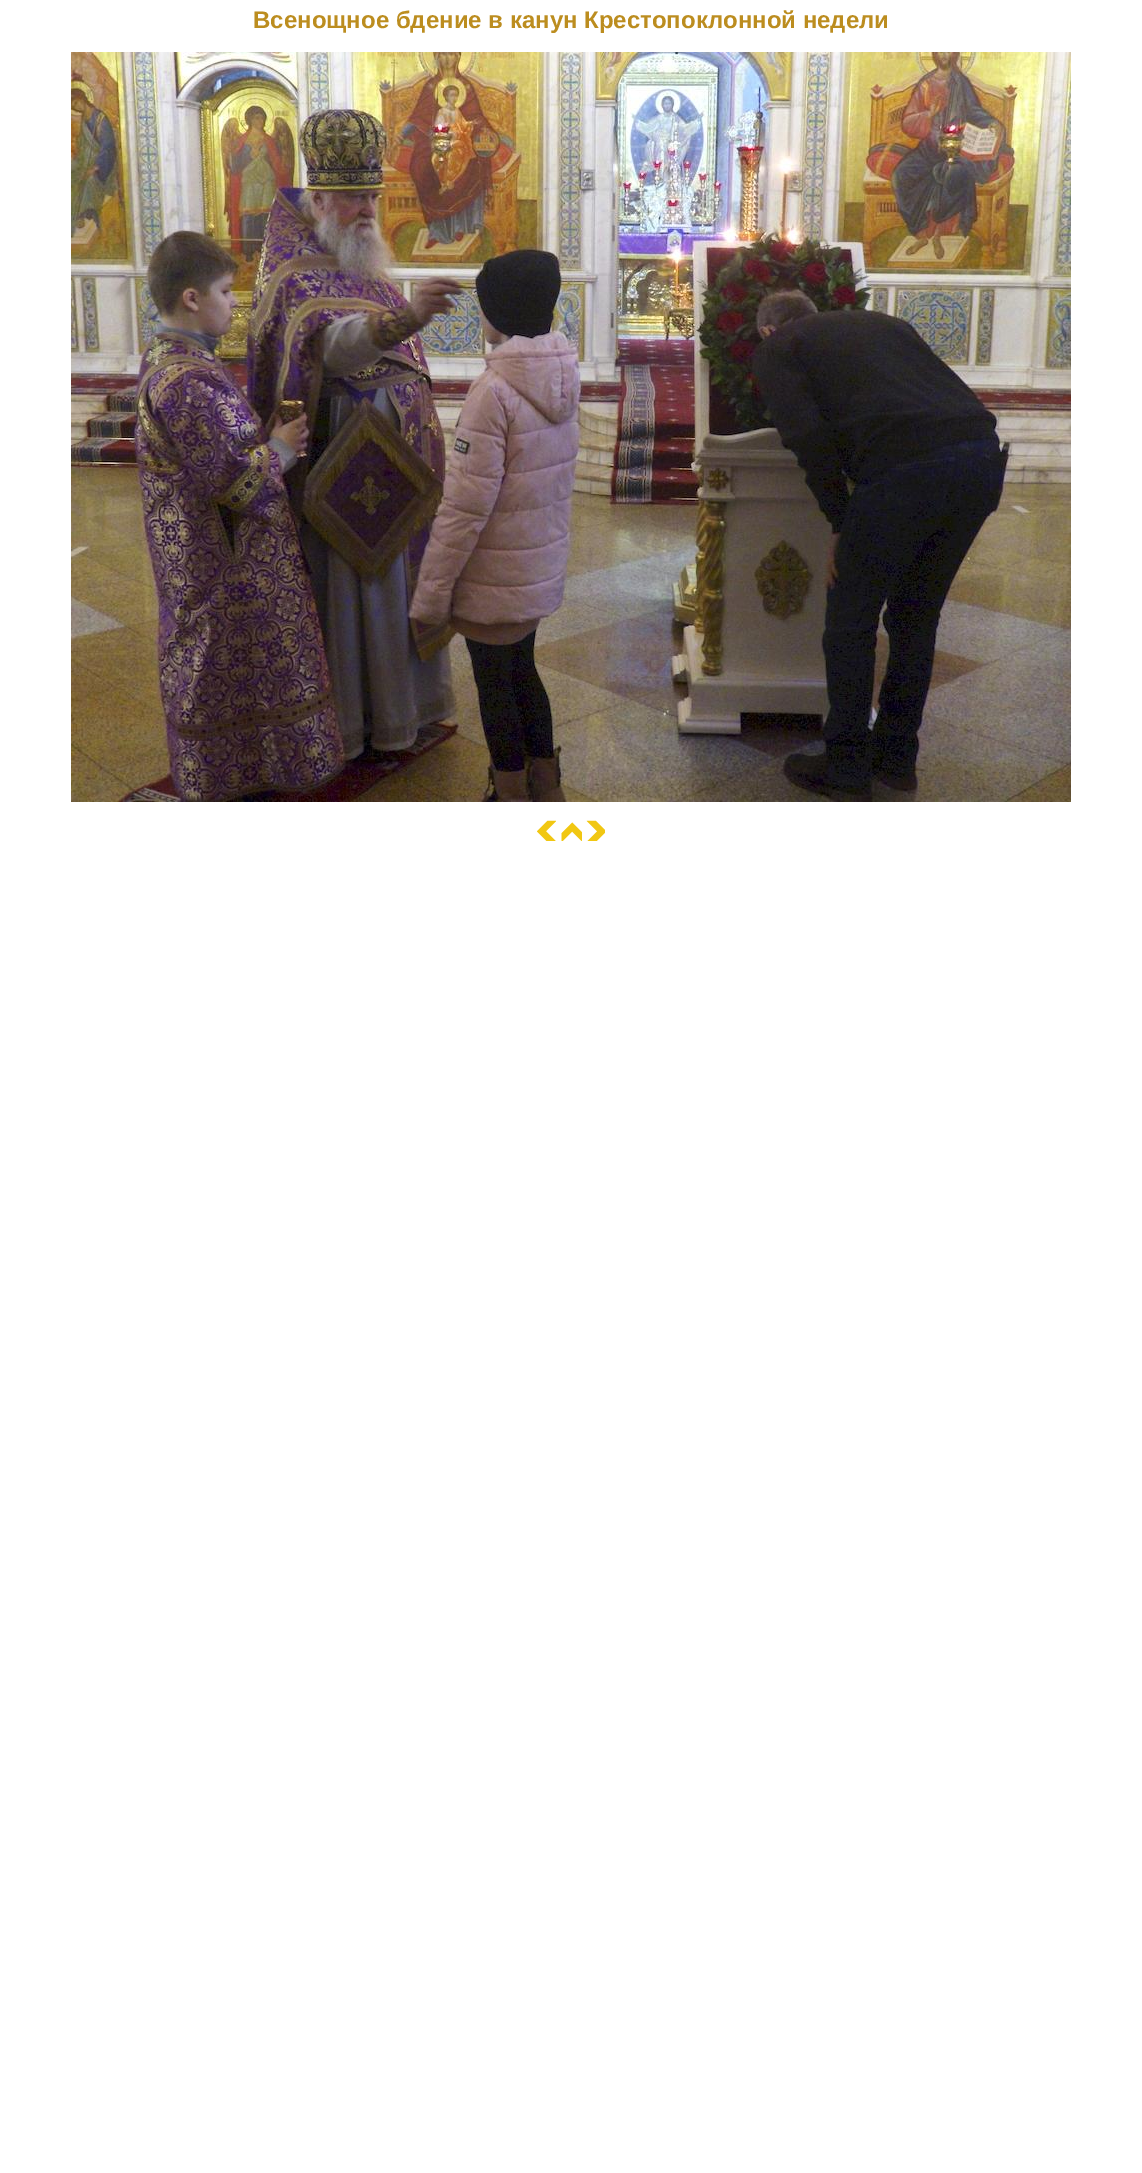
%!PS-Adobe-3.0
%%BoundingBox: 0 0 1142 2173
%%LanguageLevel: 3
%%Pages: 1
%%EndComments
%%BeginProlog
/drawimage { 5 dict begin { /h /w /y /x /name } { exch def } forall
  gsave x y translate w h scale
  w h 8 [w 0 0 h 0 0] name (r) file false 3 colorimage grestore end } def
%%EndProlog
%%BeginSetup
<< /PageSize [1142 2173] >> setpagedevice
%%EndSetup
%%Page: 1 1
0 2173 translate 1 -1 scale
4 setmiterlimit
1 setgray
0 0 1142 2173 rectfill
(images/1.raw) 71 52 1000 750 drawimage
(images/2.raw) 537 820 19 21 drawimage
(images/3.raw) 561 822 21 19 drawimage
(images/4.raw) 586 820 19 21 drawimage
/LiberationSans-Bold [24 0 0 -24 0 0] selectfont
0.737 0.553 0.122 setrgbcolor
253 28 moveto (Всенощное бдение в канун Крестопоклонной недели) show
showpage
%%EOF
